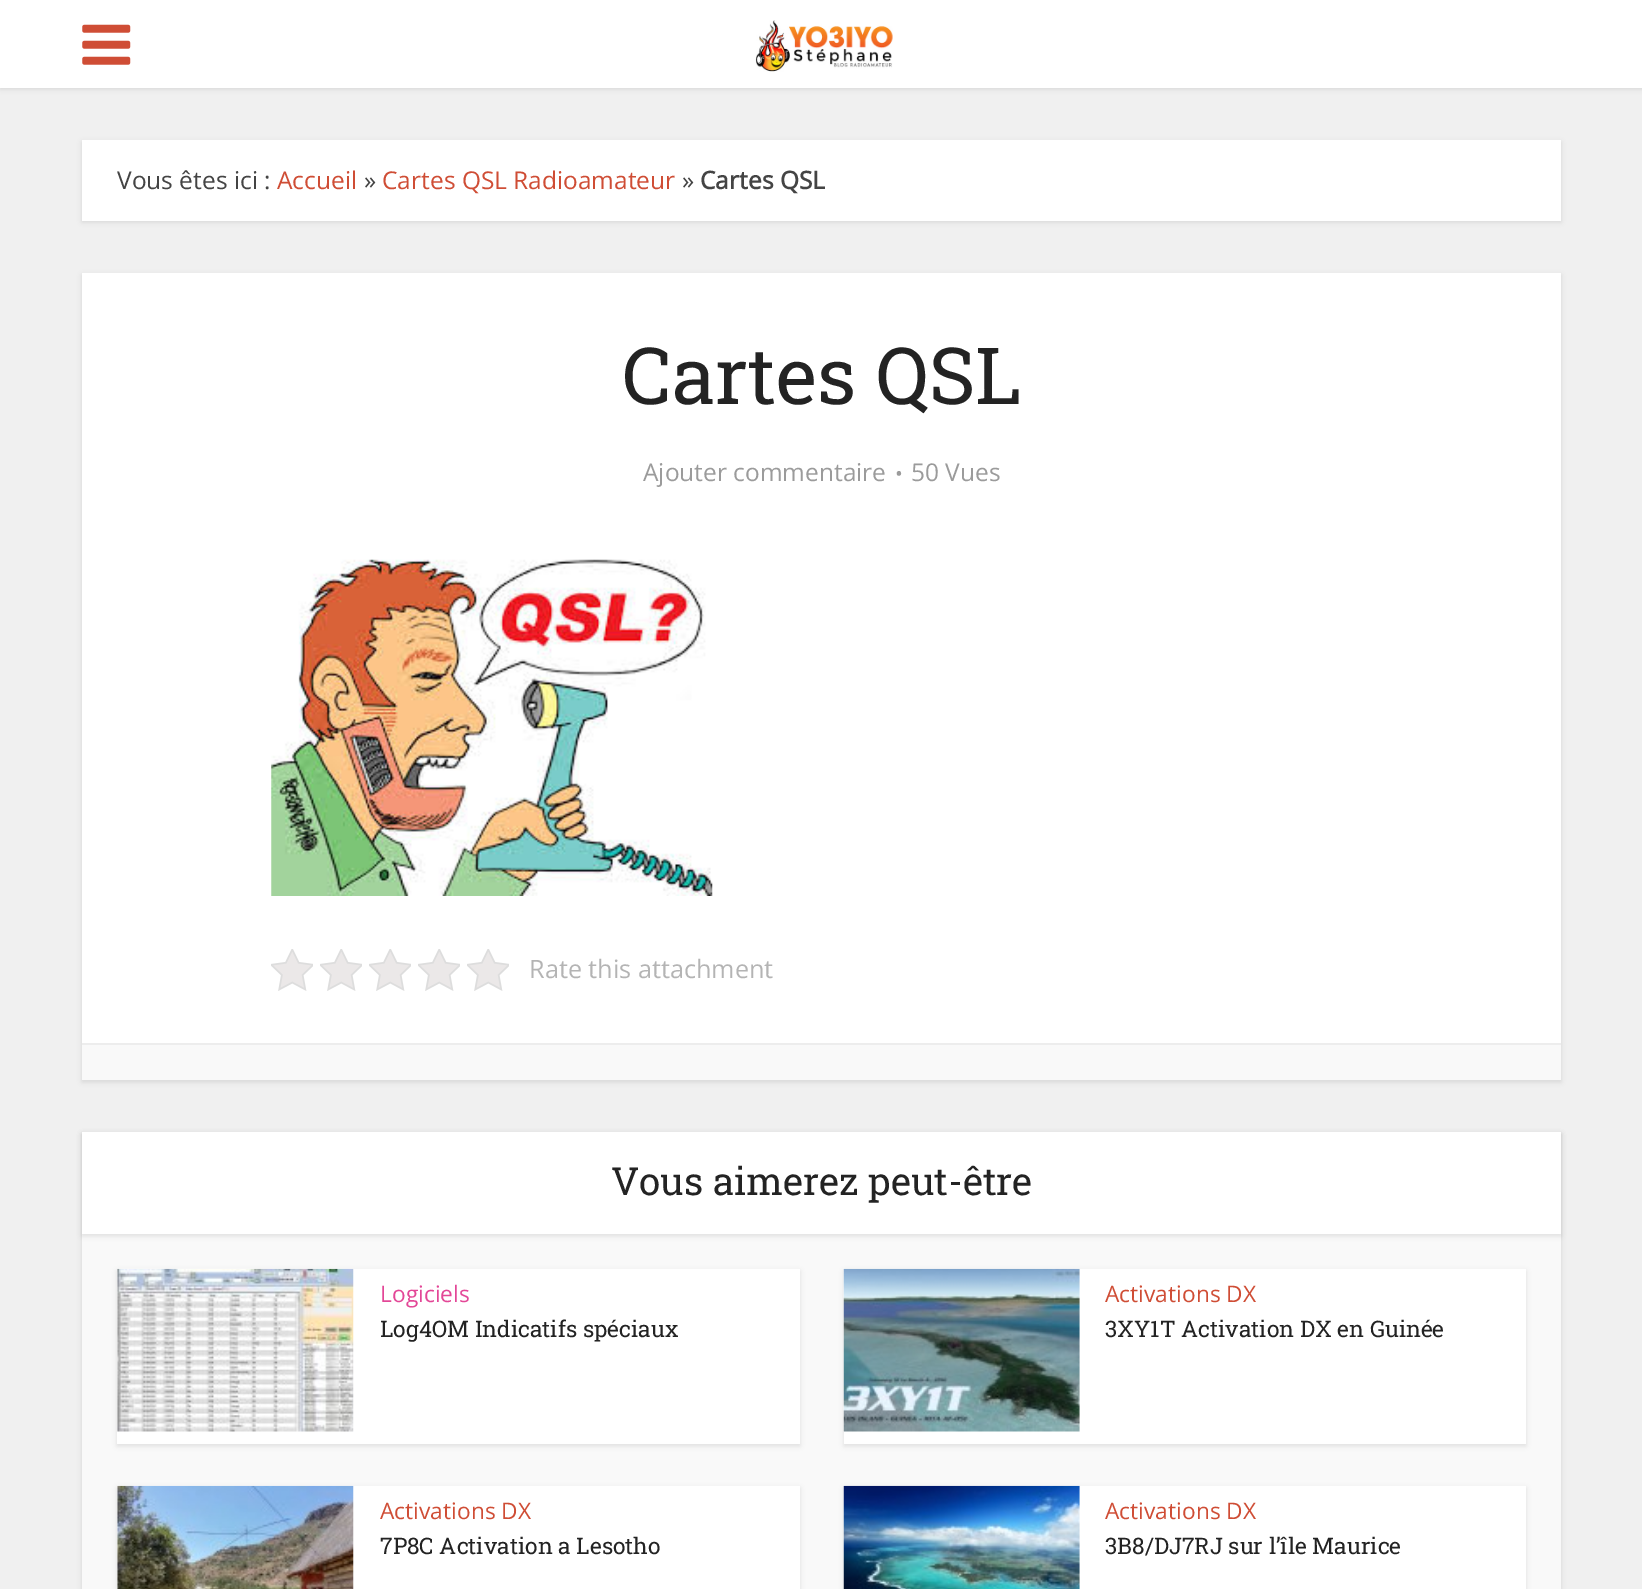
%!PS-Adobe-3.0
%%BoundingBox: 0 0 1642 1589
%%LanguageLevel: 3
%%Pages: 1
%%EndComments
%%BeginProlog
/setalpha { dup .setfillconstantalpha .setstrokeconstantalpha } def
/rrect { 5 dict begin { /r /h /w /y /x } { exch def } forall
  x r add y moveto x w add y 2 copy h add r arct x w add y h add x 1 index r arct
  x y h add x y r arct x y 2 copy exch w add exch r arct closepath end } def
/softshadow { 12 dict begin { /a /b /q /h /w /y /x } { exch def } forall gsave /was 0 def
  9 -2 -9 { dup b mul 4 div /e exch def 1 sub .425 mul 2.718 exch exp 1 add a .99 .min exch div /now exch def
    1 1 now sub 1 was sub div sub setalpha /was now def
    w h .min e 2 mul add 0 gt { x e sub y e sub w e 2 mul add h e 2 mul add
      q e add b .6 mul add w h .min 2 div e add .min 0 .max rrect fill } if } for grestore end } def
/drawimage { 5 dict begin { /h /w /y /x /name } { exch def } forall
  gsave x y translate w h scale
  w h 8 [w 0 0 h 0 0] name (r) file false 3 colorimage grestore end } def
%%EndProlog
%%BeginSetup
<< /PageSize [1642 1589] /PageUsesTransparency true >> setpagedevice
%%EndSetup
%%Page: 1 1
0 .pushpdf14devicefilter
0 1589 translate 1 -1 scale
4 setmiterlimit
0.941 setgray
0 0 1642 1589 rectfill
0 setgray
0 2 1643 87 0 2.5 0.1 softshadow
1 setgray
0 0 1642 88 rectfill
(images/1.raw) 82 24 49 41 drawimage
(images/2.raw) 755 20 138 52 drawimage
0 setgray
82 142 1479 80 0 2.5 0.1 softshadow
1 setgray
82 140 1479 81 rectfill
0 setgray
82 275 1479 807 0 2.5 0.1 softshadow
1 setgray
82 273 1479 770 rectfill
(images/3.raw) 271 559 442 337 drawimage
(images/4.raw) 271 949 42 42 drawimage
(images/4.raw) 320 949 42 42 drawimage
(images/4.raw) 369 949 42 42 drawimage
(images/4.raw) 418 949 42 42 drawimage
(images/4.raw) 467 949 42 42 drawimage
0.976 setgray
82 1045 1479 35 rectfill
0.929 setgray
82 1043 1479 2 rectfill
0 setgray
82 1134 1479 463 0 2.5 0.1 softshadow
0.976 setgray
82 1234 1479 355 rectfill
0 setgray
82 1134 1479 102 0 2.5 0.1 softshadow
1 setgray
82 1132 1479 102 rectfill
0 setgray
117 1271 683 175 0 2.5 0.1 softshadow
1 setgray
117 1269 683 175 rectfill
(images/5.raw) 117 1268 237 164 drawimage
0 setgray
844 1271 682 175 0 2.5 0.1 softshadow
1 setgray
844 1269 682 175 rectfill
(images/6.raw) 843 1268 237 164 drawimage
0 setgray
117 1488 683 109 0 2.5 0.1 softshadow
1 setgray
117 1486 683 103 rectfill
(images/7.raw) 117 1485 237 104 drawimage
0 setgray
844 1488 682 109 0 2.5 0.1 softshadow
1 setgray
1079 1486 447 103 rectfill
(images/8.raw) 843 1485 237 104 drawimage
/OpenSans-Regular [24.5 0 0 -24.5 0 0] selectfont
0.267 setgray
117 189 moveto (Vous êtes ici :) show
0.812 0.302 0.208 setrgbcolor
277 189 moveto (Accueil) show
0.267 setgray
364 189 moveto (») show
0.812 0.302 0.208 setrgbcolor
382 189 moveto (Cartes QSL Radioamateur) show
0.267 setgray
682 189 moveto (») show
/OpenSans-Bold [24.5 0 0 -24.5 0 0] selectfont
700 189 moveto (Cartes QSL) show
/RobotoSlab-Regular [78.75 0 0 -78.75 0 0] selectfont
0.137 setgray
622 404 moveto (Cartes QSL) show
/OpenSans-Regular [24.5 0 0 -24.5 0 0] selectfont
0.608 setgray
643 481 moveto (Ajouter commentaire) show
/OpenSans-Regular [21 0 0 -21 0 0] selectfont
895 481 moveto (•) show
/OpenSans-Regular [24.5 0 0 -24.5 0 0] selectfont
911 481 moveto (50 Vues) show
/OpenSans-Regular [25.25 0 0 -25.25 0 0] selectfont
0.706 setgray
529 978 moveto (Rate this attachment) show
/RobotoSlab-Regular [38.5 0 0 -38.5 0 0] selectfont
0.137 setgray
611 1195 moveto (Vous aimerez peut-être) show
/OpenSans-Regular [22.75 0 0 -22.75 0 0] selectfont
0.89 0.278 0.592 setrgbcolor
380 1302 moveto (Logiciels) show
/RobotoSlab-Regular [22.75 0 0 -22.75 0 0] selectfont
0.137 setgray
380 1337 moveto (Log4OM Indicatifs spéciaux) show
/OpenSans-Regular [22.75 0 0 -22.75 0 0] selectfont
0.812 0.302 0.208 setrgbcolor
1105 1302 moveto (Activations DX) show
/RobotoSlab-Regular [22.75 0 0 -22.75 0 0] selectfont
0.137 setgray
1105 1337 moveto (3XY1T Activation DX en Guinée) show
/OpenSans-Regular [22.75 0 0 -22.75 0 0] selectfont
0.812 0.302 0.208 setrgbcolor
380 1519 moveto (Activations DX) show
/RobotoSlab-Regular [22.75 0 0 -22.75 0 0] selectfont
0.137 setgray
380 1554 moveto (7P8C Activation a Lesotho) show
/OpenSans-Regular [22.75 0 0 -22.75 0 0] selectfont
0.812 0.302 0.208 setrgbcolor
1105 1519 moveto (Activations DX) show
/RobotoSlab-Regular [22.75 0 0 -22.75 0 0] selectfont
0.137 setgray
1105 1554 moveto (3B8/DJ7RJ sur l’île Maurice) show
.poppdf14devicefilter showpage
%%EOF
